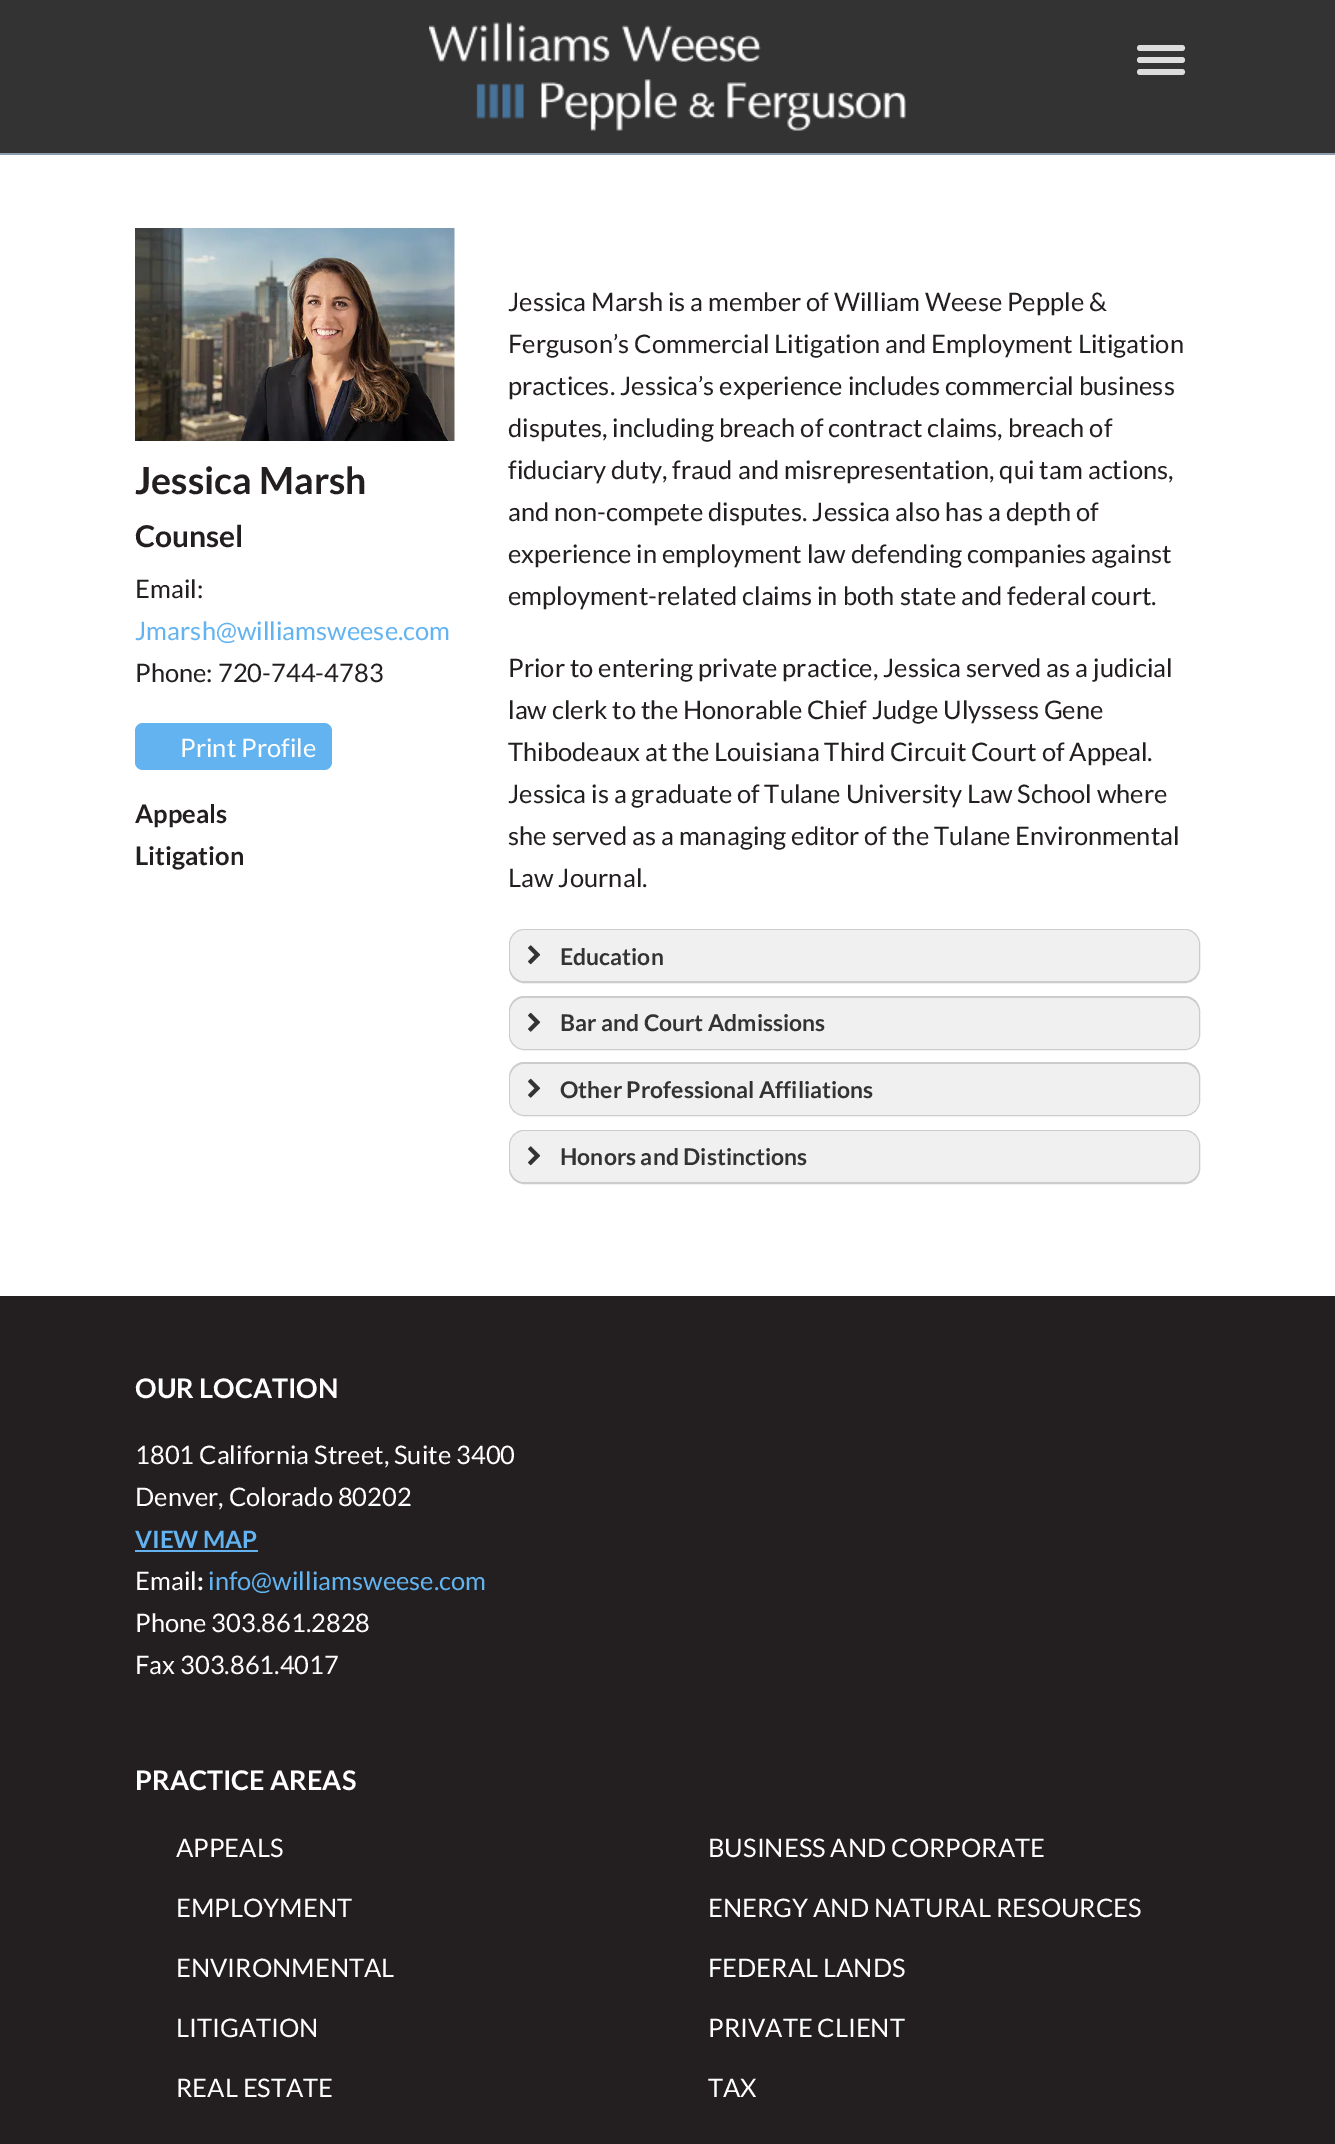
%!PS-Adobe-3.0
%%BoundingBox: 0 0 1335 2144
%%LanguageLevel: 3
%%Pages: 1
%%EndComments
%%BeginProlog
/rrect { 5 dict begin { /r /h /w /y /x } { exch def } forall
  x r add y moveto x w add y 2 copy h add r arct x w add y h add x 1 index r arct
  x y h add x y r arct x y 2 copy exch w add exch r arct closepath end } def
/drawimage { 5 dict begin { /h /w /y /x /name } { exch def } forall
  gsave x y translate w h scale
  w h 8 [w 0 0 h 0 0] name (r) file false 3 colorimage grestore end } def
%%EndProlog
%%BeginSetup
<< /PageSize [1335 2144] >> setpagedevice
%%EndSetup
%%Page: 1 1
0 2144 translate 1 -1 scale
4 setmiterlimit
1 setgray
0 0 1335 2144 rectfill
0.2 setgray
0 0 1335 153 rectfill
0.545 0.612 0.675 setrgbcolor
0 153 1335 2 rectfill
(images/1.raw) 429 22 477 109 drawimage
0.867 setgray
1137 45 48 6 3 rrect fill
1137 57 48 6 3 rrect fill
1137 69 48 6 3 rrect fill
(images/2.raw) 135 228 320 213 drawimage
0.384 0.702 0.937 setrgbcolor
135 723 197 47 8 rrect fill
0.8 setgray
2 setlinewidth
510 930 689 52 14 rrect stroke
0.941 setgray
510 930 689 51 15 rrect fill
(images/3.raw) 528 945 13 20 drawimage
0.8 setgray
510 997 689 52 14 rrect stroke
0.941 setgray
510 998 689 51 15 rrect fill
(images/4.raw) 528 1012 13 20 drawimage
0.8 setgray
510 1063 689 52 14 rrect stroke
0.941 setgray
510 1064 689 51 15 rrect fill
(images/4.raw) 528 1078 13 20 drawimage
0.8 setgray
510 1131 689 52 14 rrect stroke
0.941 setgray
510 1131 689 51 15 rrect fill
(images/3.raw) 528 1146 13 20 drawimage
0.137 0.122 0.125 setrgbcolor
0 1296 1335 848 rectfill
0.384 0.702 0.937 setrgbcolor
135 1550 123 2 rectfill
/Lato-Bold [37.5 0 0 -37.5 0 0] selectfont
0.137 0.122 0.125 setrgbcolor
135 494 moveto (Jessica Marsh) show
/Lato-Bold [30 0 0 -30 0 0] selectfont
135 547 moveto (Counsel) show
/Lato-Regular [25.5 0 0 -25.5 0 0] selectfont
135 598 moveto (Email:) show
0.384 0.702 0.937 setrgbcolor
135 640 moveto (Jmarsh@williamsweese.com) show
0.137 0.122 0.125 setrgbcolor
135 682 moveto (Phone: 720-744-4783) show
1 setgray
180 757 moveto (Print Profile) show
/Lato-Bold [25.5 0 0 -25.5 0 0] selectfont
0.137 0.122 0.125 setrgbcolor
135 823 moveto (Appeals) show
135 865 moveto (Litigation) show
/Lato-Regular [25.5 0 0 -25.5 0 0] selectfont
508 311 moveto (Jessica Marsh is a member of William Weese Pepple &) show
508 353 moveto (Ferguson’s Commercial Litigation and Employment Litigation) show
508 395 moveto (practices. Jessica’s experience includes commercial business) show
508 437 moveto (disputes, including breach of contract claims, breach of) show
508 479 moveto (fiduciary duty, fraud and misrepresentation, qui tam actions,) show
508 521 moveto (and non-compete disputes. Jessica also has a depth of) show
508 563 moveto (experience in employment law defending companies against) show
508 605 moveto (employment-related claims in both state and federal court.) show
508 677 moveto (Prior to entering private practice, Jessica served as a judicial) show
508 719 moveto (law clerk to the Honorable Chief Judge Ulyssess Gene) show
508 761 moveto (Thibodeaux at the Louisiana Third Circuit Court of Appeal.) show
508 803 moveto (Jessica is a graduate of Tulane University Law School where) show
508 845 moveto (she served as a managing editor of the Tulane Environmental) show
508 887 moveto (Law Journal.) show
/Lato-Bold [23 0 0 -23 0 0] selectfont
0.2 setgray
560 965 moveto (Education) show
560 1031 moveto (Bar and Court Admissions) show
560 1098 moveto (Other Professional Affiliations) show
560 1165 moveto (Honors and Distinctions) show
/Lato-Bold [27 0 0 -27 0 0] selectfont
1 setgray
135 1398 moveto (OUR LOCATION) show
/Lato-Regular [25.5 0 0 -25.5 0 0] selectfont
135 1464 moveto (1801 California Street, Suite 3400) show
135 1506 moveto (Denver, Colorado 80202) show
/Lato-Bold [24 0 0 -24 0 0] selectfont
0.384 0.702 0.937 setrgbcolor
135 1548 moveto (VIEW MAP) show
/Lato-Regular [25.5 0 0 -25.5 0 0] selectfont
1 setgray
135 1590 moveto (Email) show
/Lato-Bold [25.5 0 0 -25.5 0 0] selectfont
197 1590 moveto (:) show
/Lato-Regular [25.5 0 0 -25.5 0 0] selectfont
0.384 0.702 0.937 setrgbcolor
208 1590 moveto (info@williamsweese.com) show
1 setgray
135 1632 moveto (Phone 303.861.2828) show
135 1674 moveto (Fax 303.861.4017) show
/Lato-Bold [27 0 0 -27 0 0] selectfont
135 1790 moveto (PRACTICE AREAS) show
/Lato-Regular [25.5 0 0 -25.5 0 0] selectfont
176 1857 moveto (APPEALS) show
708 1857 moveto (BUSINESS AND CORPORATE) show
176 1917 moveto (EMPLOYMENT) show
708 1917 moveto (ENERGY AND NATURAL RESOURCES) show
176 1977 moveto (ENVIRONMENTAL) show
708 1977 moveto (FEDERAL LANDS) show
176 2037 moveto (LITIGATION) show
708 2037 moveto (PRIVATE CLIENT) show
176 2097 moveto (REAL ESTATE) show
708 2097 moveto (TAX) show
showpage
%%EOF
